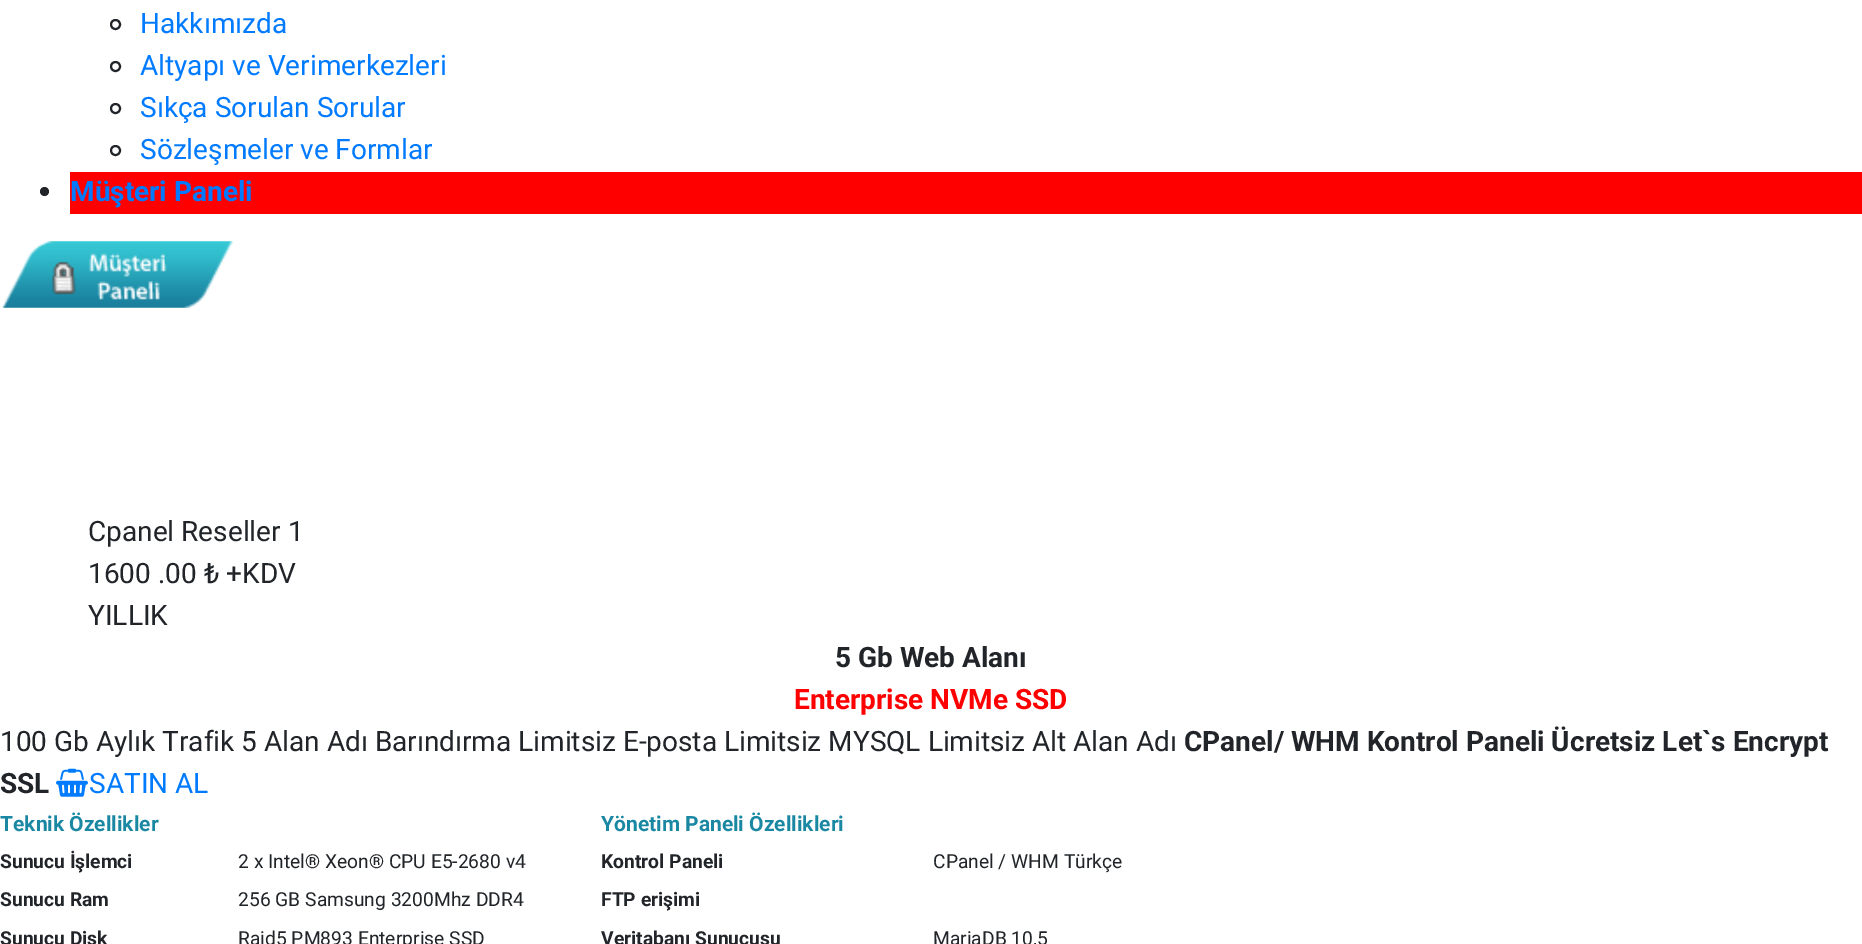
%!PS-Adobe-3.0
%%BoundingBox: 0 0 1862 944
%%LanguageLevel: 3
%%Pages: 1
%%EndComments
%%BeginProlog
/drawimage { 5 dict begin { /h /w /y /x /name } { exch def } forall
  gsave x y translate w h scale
  w h 8 [w 0 0 h 0 0] name (r) file false 3 colorimage grestore end } def
%%EndProlog
%%BeginSetup
<< /PageSize [1862 944] >> setpagedevice
%%EndSetup
%%Page: 1 1
0 944 translate 1 -1 scale
4 setmiterlimit
1 setgray
0 0 1862 944 rectfill
0.129 0.145 0.161 setrgbcolor
2 setlinewidth
newpath 115.5 24.5 4.5 0 360 arc closepath stroke
newpath 115.5 66.5 4.5 0 360 arc closepath stroke
newpath 115.5 108.5 4.5 0 360 arc closepath stroke
newpath 115.5 150.5 4.5 0 360 arc closepath stroke
1 0 0 setrgbcolor
70 172 1792 42 rectfill
0.129 0.145 0.161 setrgbcolor
newpath 44.5 191.5 4.5 0 360 arc closepath fill
(images/1.raw) 1 241 232 67 drawimage
(images/2.raw) 56 768 32 29 drawimage
/Roboto-Regular [28 0 0 -28 0 0] selectfont
0 0.482 1 setrgbcolor
140 33 moveto (Hakkımızda) show
140 75 moveto (Altyapı ve Verimerkezleri) show
140 117 moveto (Sıkça Sorulan Sorular) show
140 159 moveto (Sözleşmeler ve Formlar) show
/Roboto-Bold [28 0 0 -28 0 0] selectfont
70 201 moveto (Müşteri Paneli) show
/Roboto-Regular [28 0 0 -28 0 0] selectfont
0.129 0.145 0.161 setrgbcolor
88 541 moveto (Cpanel Reseller 1) show
88 583 moveto (1600 .00 ₺ +KDV) show
88 625 moveto (YILLIK) show
/Roboto-Bold [28 0 0 -28 0 0] selectfont
835 667 moveto (5 Gb Web Alanı) show
1 0 0 setrgbcolor
794 709 moveto (Enterprise NVMe SSD) show
/Roboto-Regular [28 0 0 -28 0 0] selectfont
0.129 0.145 0.161 setrgbcolor
0 751 moveto (100 Gb Aylık Trafik 5 Alan Adı Barındırma Limitsiz E-posta Limitsiz MYSQL Limitsiz Alt Alan Adı) show
/Roboto-Bold [28 0 0 -28 0 0] selectfont
1184 751 moveto (CPanel/ WHM Kontrol Paneli Ücretsiz Let`s Encrypt) show
0 793 moveto (SSL) show
/Roboto-Regular [28 0 0 -28 0 0] selectfont
0 0.482 1 setrgbcolor
89 793 moveto (SATIN AL) show
/Roboto-Bold [21 0 0 -21 0 0] selectfont
0.102 0.529 0.639 setrgbcolor
0 831 moveto (Teknik Özellikler) show
601 831 moveto (Yönetim Paneli Özellikleri) show
/Roboto-Bold [19.25 0 0 -19.25 0 0] selectfont
0.129 0.145 0.161 setrgbcolor
0 868 moveto (Sunucu İşlemci) show
/Roboto-Regular [19.25 0 0 -19.25 0 0] selectfont
238 868 moveto (2 x Intel® Xeon® CPU E5-2680 v4) show
/Roboto-Bold [19.25 0 0 -19.25 0 0] selectfont
601 868 moveto (Kontrol Paneli) show
/Roboto-Regular [19.25 0 0 -19.25 0 0] selectfont
933 868 moveto (CPanel / WHM Türkçe) show
/Roboto-Bold [19.25 0 0 -19.25 0 0] selectfont
0 906 moveto (Sunucu Ram) show
/Roboto-Regular [19.25 0 0 -19.25 0 0] selectfont
238 906 moveto (256 GB Samsung 3200Mhz DDR4) show
/Roboto-Bold [19.25 0 0 -19.25 0 0] selectfont
601 906 moveto (FTP erişimi) show
0 945 moveto (Sunucu Disk) show
/Roboto-Regular [19.25 0 0 -19.25 0 0] selectfont
238 945 moveto (Raid5 PM893 Enterprise SSD) show
/Roboto-Bold [19.25 0 0 -19.25 0 0] selectfont
601 945 moveto (Veritabanı Sunucusu) show
/Roboto-Regular [19.25 0 0 -19.25 0 0] selectfont
933 945 moveto (MariaDB 10,5) show
showpage
%%EOF
